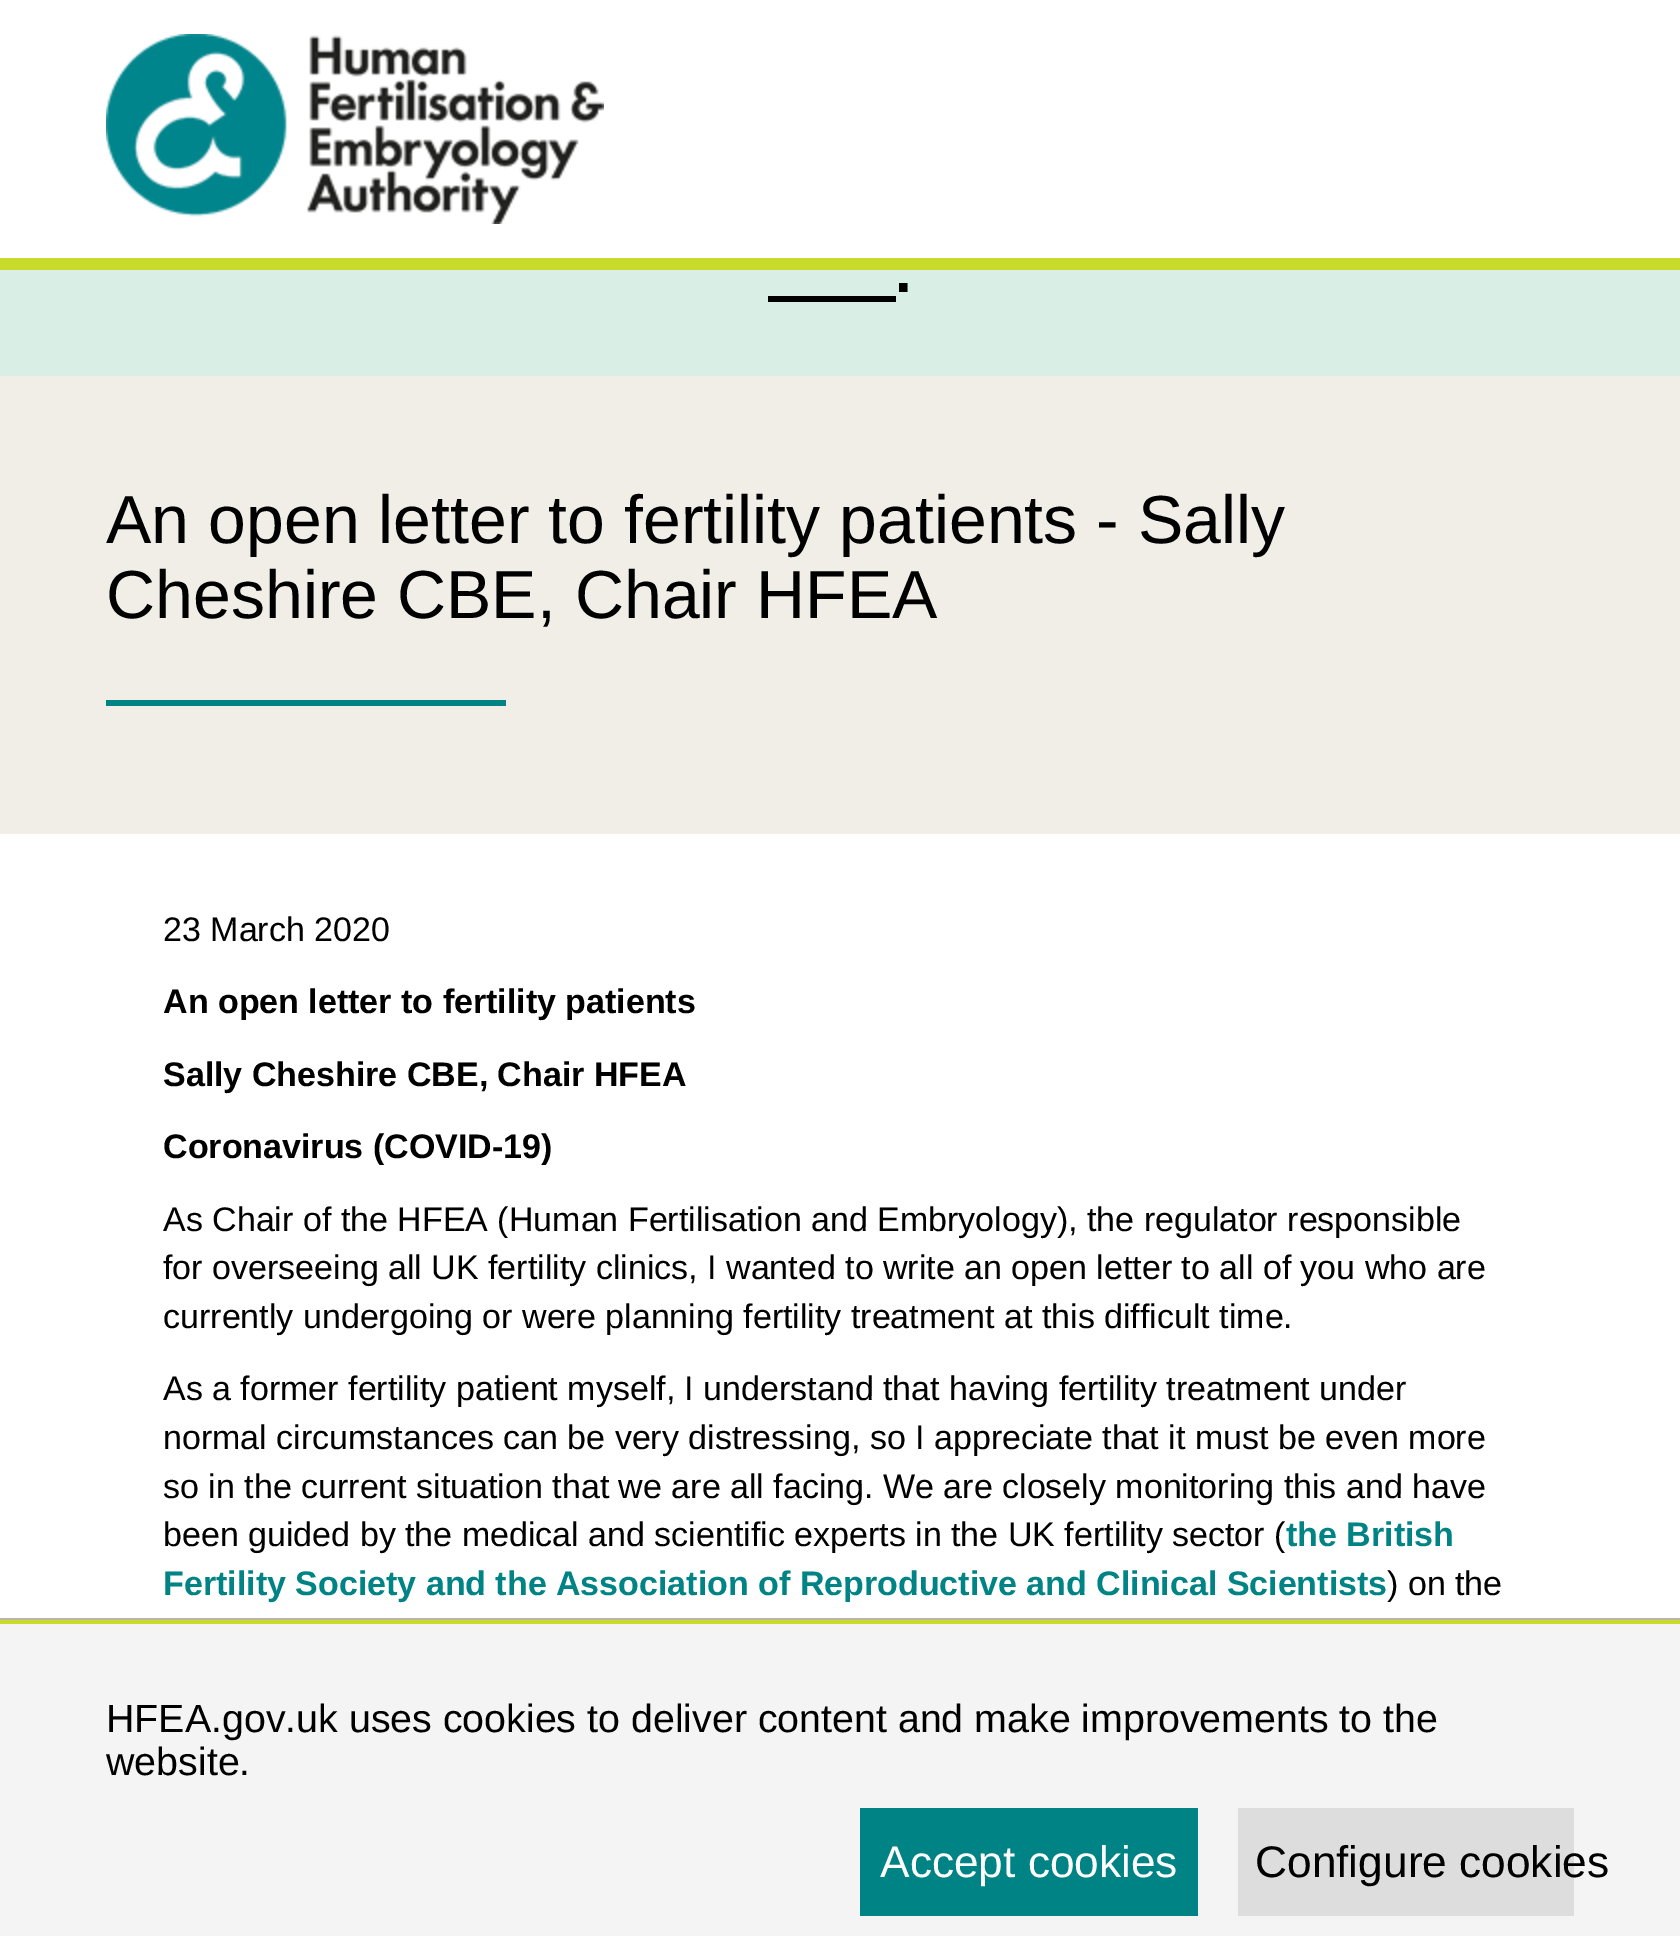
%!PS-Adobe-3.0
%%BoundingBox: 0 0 1680 1936
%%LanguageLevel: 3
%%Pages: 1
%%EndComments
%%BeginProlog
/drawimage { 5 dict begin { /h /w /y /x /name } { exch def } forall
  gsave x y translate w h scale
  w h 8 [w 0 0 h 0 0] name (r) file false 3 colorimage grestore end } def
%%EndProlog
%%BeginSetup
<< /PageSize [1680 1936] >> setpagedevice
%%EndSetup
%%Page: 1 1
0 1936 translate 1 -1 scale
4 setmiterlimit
1 setgray
0 0 1680 1936 rectfill
0.784 0.855 0.165 setrgbcolor
0 258 1680 12 rectfill
(images/1.raw) 106 34 498 190 drawimage
0.851 0.937 0.898 setrgbcolor
0 270 1680 106 rectfill
0 setgray
768 296 128 6 rectfill
0.945 0.929 0.906 setrgbcolor
0 376 1680 458 rectfill
0 0.514 0.522 setrgbcolor
106 700 400 6 rectfill
0.957 setgray
0 1624 1680 312 rectfill
0.737 0.706 0.671 setrgbcolor
0 1618 1680 2 rectfill
0.784 0.855 0.165 setrgbcolor
0 1620 1680 4 rectfill
0 0.514 0.522 setrgbcolor
860 1808 338 108 rectfill
0.867 setgray
1238 1808 336 108 rectfill
/LiberationSans-Bold [60 0 0 -60 0 0] selectfont
0 setgray
895 292 moveto (.) show
/LiberationSans-Regular [68 0 0 -68 0 0] selectfont
106 543 moveto (An open letter to fertility patients - Sally) show
106 618 moveto (Cheshire CBE, Chair HFEA) show
/LiberationSans-Regular [34 0 0 -34 0 0] selectfont
163 941 moveto (23 March 2020) show
/LiberationSans-Bold [34 0 0 -34 0 0] selectfont
163 1013 moveto (An open letter to fertility patients) show
163 1086 moveto (Sally Cheshire CBE, Chair HFEA) show
163 1158 moveto (Coronavirus \(COVID-19\)) show
/LiberationSans-Regular [34 0 0 -34 0 0] selectfont
163 1231 moveto (As Chair of the HFEA \(Human Fertilisation and Embryology\), the regulator responsible) show
163 1279 moveto (for overseeing all UK fertility clinics, I wanted to write an open letter to all of you who are) show
163 1328 moveto (currently undergoing or were planning fertility treatment at this difficult time.) show
163 1400 moveto (As a former fertility patient myself, I understand that having fertility treatment under) show
163 1449 moveto (normal circumstances can be very distressing, so I appreciate that it must be even more) show
163 1498 moveto (so in the current situation that we are all facing. We are closely monitoring this and have) show
163 1546 moveto (been guided by the medical and scientific experts in the UK fertility sector \() show
/LiberationSans-Bold [34 0 0 -34 0 0] selectfont
0 0.514 0.522 setrgbcolor
1286 1546 moveto (the British) show
163 1595 moveto (Fertility Society and the Association of Reproductive and Clinical Scientists) show
/LiberationSans-Regular [34 0 0 -34 0 0] selectfont
0 setgray
1387 1595 moveto (\) on the) show
/LiberationSans-Regular [39.35 0 0 -39.35 0 0] selectfont
106 1732 moveto (HFEA.gov.uk uses cookies to deliver content and make improvements to the) show
106 1775 moveto (website.) show
/LiberationSans-Regular [44.25 0 0 -44.25 0 0] selectfont
1 setgray
880 1877 moveto (Accept cookies) show
0 setgray
1255 1877 moveto (Configure cookies) show
showpage
%%EOF
